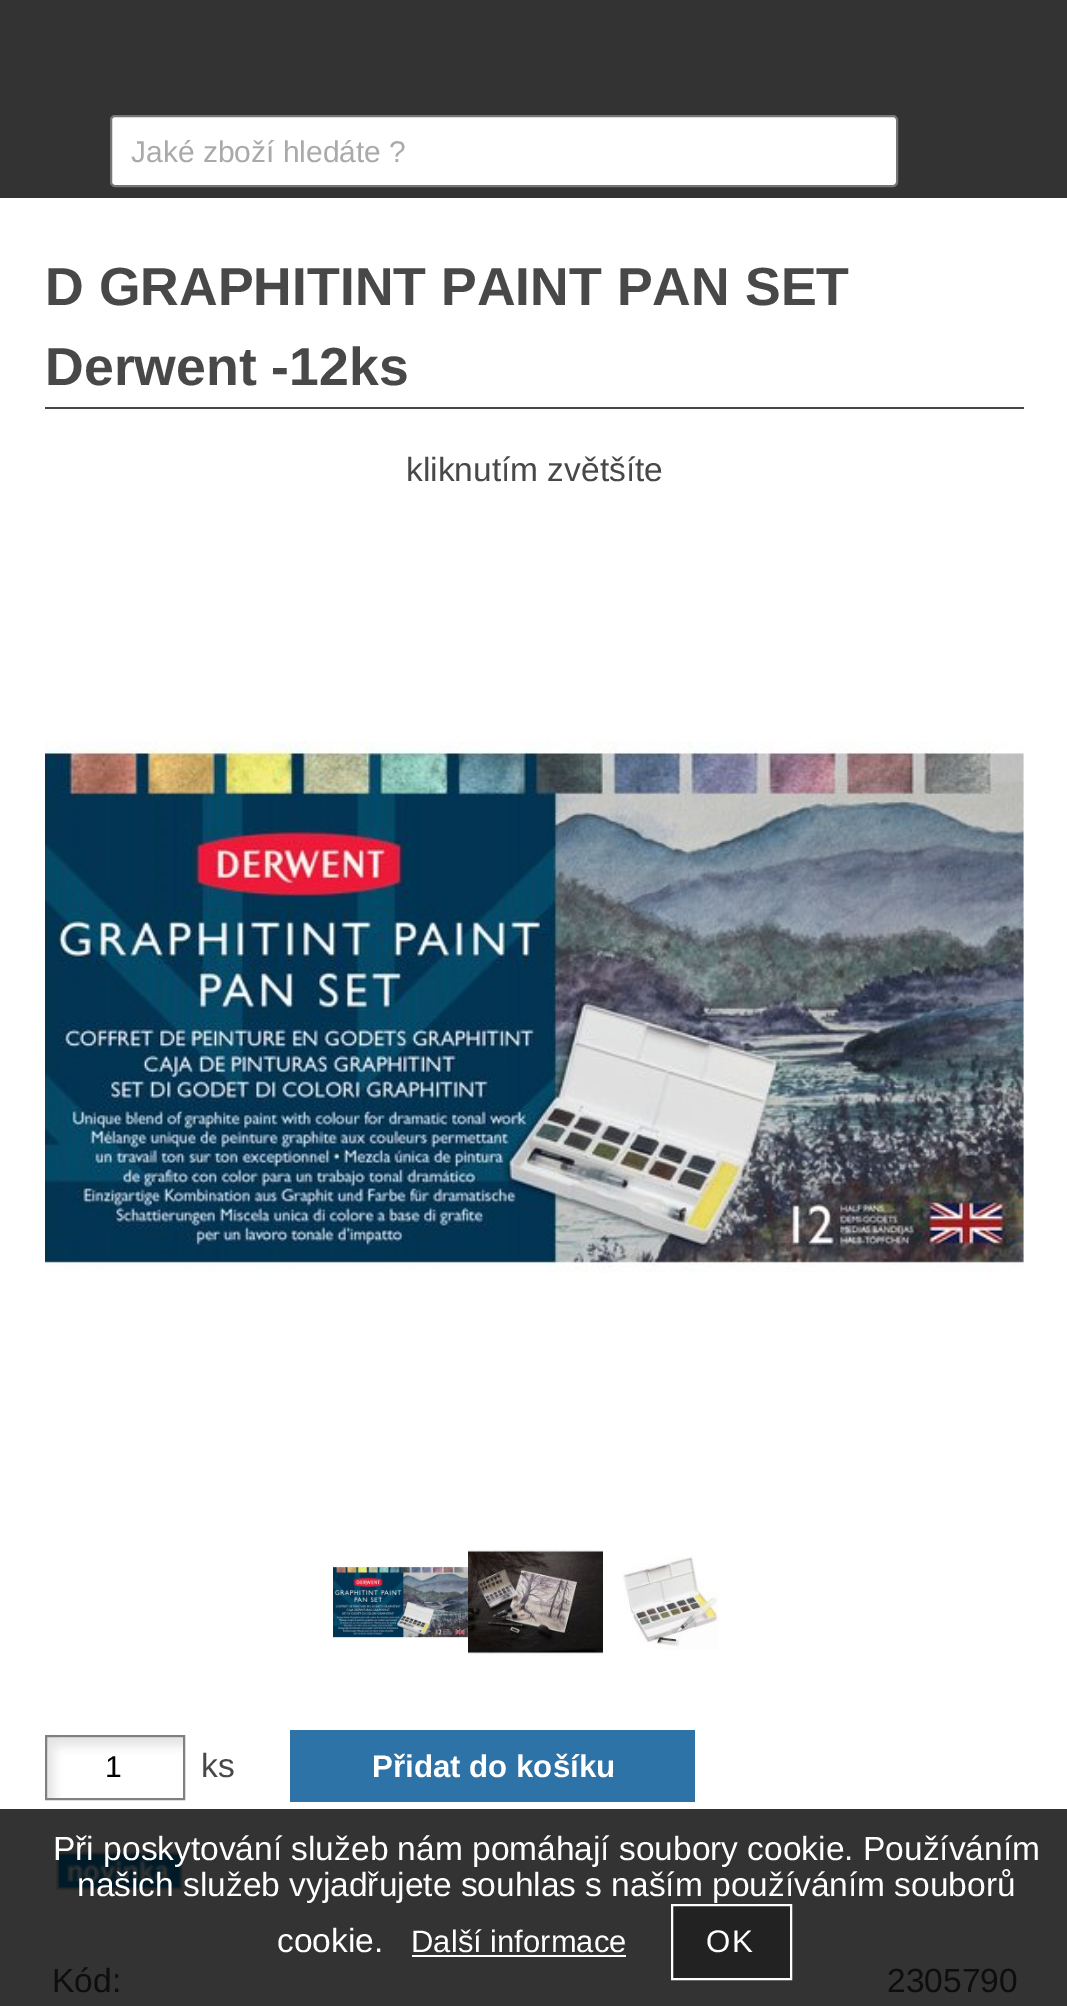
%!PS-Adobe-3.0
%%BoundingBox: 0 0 1067 2006
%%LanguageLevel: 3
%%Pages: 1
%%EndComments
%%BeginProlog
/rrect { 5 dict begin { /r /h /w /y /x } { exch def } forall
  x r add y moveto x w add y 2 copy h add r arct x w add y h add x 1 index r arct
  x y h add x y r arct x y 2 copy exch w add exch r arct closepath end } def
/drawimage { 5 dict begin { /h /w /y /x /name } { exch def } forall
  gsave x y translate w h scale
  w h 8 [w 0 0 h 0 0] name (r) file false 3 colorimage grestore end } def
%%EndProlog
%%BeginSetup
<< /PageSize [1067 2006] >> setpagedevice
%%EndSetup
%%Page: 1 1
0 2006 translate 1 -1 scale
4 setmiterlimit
1 setgray
0 0 1067 2006 rectfill
0.2 setgray
0 1809 1067 197 rectfill
0 0 1067 198 rectfill
1 setgray
111 116 786 70 4 rrect gsave fill grestore
0.463 setgray
2 setlinewidth
stroke
0.282 setgray
45 407 979 2 rectfill
(images/1.raw) 45 740 979 533 drawimage
(images/2.raw) 333 1565 135 74 drawimage
(images/3.raw) 468 1549 135 107 drawimage
(images/4.raw) 623 1556 96 94 drawimage
(images/5.raw) 45 1734 140 64 drawimage
0.502 setgray
46 1736 138 63 rectstroke
0.176 0.451 0.659 setrgbcolor
290 1730 405 72 rectfill
(images/6.raw) 56 1851 127 39 drawimage
1 setgray
412 1955 214 2 rectfill
0.133 setgray
newpath 672 1905 moveto 791 1905 lineto 791 1979 lineto 672 1979 lineto closepath gsave fill grestore
1 setgray
stroke
/LiberationSans-Regular [30 0 0 -30 0 0] selectfont
0.667 setgray
131 162 moveto (Jaké zboží hledáte ?) show
/LiberationSans-Bold [53.6 0 0 -53.6 0 0] selectfont
0.282 setgray
45 305 moveto (D GRAPHITINT PAINT PAN SET) show
45 385 moveto (Derwent -12ks) show
/LiberationSans-Regular [33.5 0 0 -33.5 0 0] selectfont
406 481 moveto (kliknutím zvětšíte) show
/LiberationSans-Regular [30 0 0 -30 0 0] selectfont
0 setgray
105 1777 moveto 2 0 (1) ashow
/LiberationSans-Regular [33.5 0 0 -33.5 0 0] selectfont
0.282 setgray
201 1777 moveto (ks) show
/LiberationSans-Bold [31.25 0 0 -31.25 0 0] selectfont
1 setgray
372 1777 moveto (Přidat do košíku) show
/LiberationSans-Regular [33.5 0 0 -33.5 0 0] selectfont
0.055 setgray
52 1992 moveto (Kód:) show
887 1992 moveto (2305790) show
1 setgray
53 1860 moveto (Při poskytování služeb nám pomáhají soubory cookie. Používáním) show
77 1896 moveto (našich služeb vyjadřujete souhlas s naším používáním souborů) show
277 1952 moveto (cookie.) show
/LiberationSans-Regular [31 0 0 -31 0 0] selectfont
411 1952 moveto (Další informace) show
/LiberationSans-Regular [31.25 0 0 -31.25 0 0] selectfont
706 1952 moveto 2 0 (OK) ashow
showpage
%%EOF
